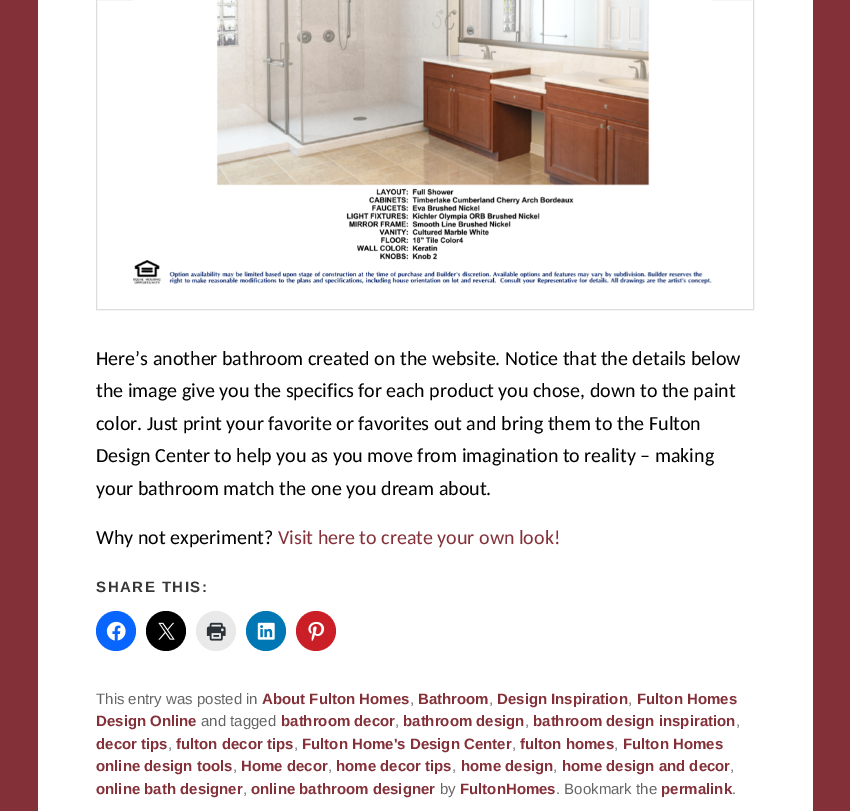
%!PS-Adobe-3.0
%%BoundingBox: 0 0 850 811
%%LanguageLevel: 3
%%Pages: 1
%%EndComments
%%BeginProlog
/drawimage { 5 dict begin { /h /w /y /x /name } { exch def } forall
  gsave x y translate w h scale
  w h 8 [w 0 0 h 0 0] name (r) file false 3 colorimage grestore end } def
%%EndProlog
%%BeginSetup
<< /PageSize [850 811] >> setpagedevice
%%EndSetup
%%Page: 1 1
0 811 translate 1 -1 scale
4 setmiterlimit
0.518 0.188 0.224 setrgbcolor
0 0 850 811 rectfill
1 setgray
38 0 775 811 rectfill
0.867 setgray
96.5 -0.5 657 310 rectstroke
(images/1.raw) 133 0 579 285 drawimage
0.031 0.4 1 setrgbcolor
newpath 116 631 20 0 360 arc closepath fill
(images/2.raw) 106 621 20 20 drawimage
0 setgray
newpath 166 631 20 0 360 arc closepath fill
(images/3.raw) 158 622 17 18 drawimage
0.914 setgray
newpath 216 631 20 0 360 arc closepath fill
(images/4.raw) 206 622 20 19 drawimage
0 0.467 0.71 setrgbcolor
newpath 266 631 20 0 360 arc closepath fill
(images/5.raw) 257 622 18 18 drawimage
0.792 0.122 0.153 setrgbcolor
newpath 316 631 20 0 360 arc closepath fill
(images/6.raw) 308 621 17 21 drawimage
/Carlito-Regular [20 0 0 -20 0 0] selectfont
0 setgray
96 365 moveto (Here’s another bathroom created on the website. Notice that the details below) show
96 397 moveto (the image give you the specifics for each product you chose, down to the paint) show
96 430 moveto (color. Just print your favorite or favorites out and bring them to the Fulton) show
96 462 moveto (Design Center to help you as you move from imagination to reality – making) show
96 495 moveto (your bathroom match the one you dream about.) show
96 544 moveto (Why not experiment?) show
0.518 0.188 0.224 setrgbcolor
278 544 moveto (Visit here to create your own look!) show
/LiberationSans-Bold [15 0 0 -15 0 0] selectfont
0.216 setgray
96 592 moveto 1.5 0 (SHARE THIS:) ashow
/LiberationSans-Regular [15 0 0 -15 0 0] selectfont
0.4 setgray
96 704 moveto (This entry was posted in) show
/LiberationSans-Bold [15 0 0 -15 0 0] selectfont
0.518 0.188 0.224 setrgbcolor
262 704 moveto (About Fulton Homes) show
/LiberationSans-Regular [15 0 0 -15 0 0] selectfont
0.4 setgray
410 704 moveto (,) show
/LiberationSans-Bold [15 0 0 -15 0 0] selectfont
0.518 0.188 0.224 setrgbcolor
418 704 moveto (Bathroom) show
/LiberationSans-Regular [15 0 0 -15 0 0] selectfont
0.4 setgray
489 704 moveto (,) show
/LiberationSans-Bold [15 0 0 -15 0 0] selectfont
0.518 0.188 0.224 setrgbcolor
497 704 moveto (Design Inspiration) show
/LiberationSans-Regular [15 0 0 -15 0 0] selectfont
0.4 setgray
628 704 moveto (,) show
/LiberationSans-Bold [15 0 0 -15 0 0] selectfont
0.518 0.188 0.224 setrgbcolor
637 704 moveto (Fulton Homes) show
96 726 moveto (Design Online) show
/LiberationSans-Regular [15 0 0 -15 0 0] selectfont
0.4 setgray
201 726 moveto (and tagged) show
/LiberationSans-Bold [15 0 0 -15 0 0] selectfont
0.518 0.188 0.224 setrgbcolor
281 726 moveto (bathroom decor) show
/LiberationSans-Regular [15 0 0 -15 0 0] selectfont
0.4 setgray
395 726 moveto (,) show
/LiberationSans-Bold [15 0 0 -15 0 0] selectfont
0.518 0.188 0.224 setrgbcolor
403 726 moveto (bathroom design) show
/LiberationSans-Regular [15 0 0 -15 0 0] selectfont
0.4 setgray
525 726 moveto (,) show
/LiberationSans-Bold [15 0 0 -15 0 0] selectfont
0.518 0.188 0.224 setrgbcolor
533 726 moveto (bathroom design inspiration) show
/LiberationSans-Regular [15 0 0 -15 0 0] selectfont
0.4 setgray
736 726 moveto (,) show
/LiberationSans-Bold [15 0 0 -15 0 0] selectfont
0.518 0.188 0.224 setrgbcolor
96 749 moveto (decor tips) show
/LiberationSans-Regular [15 0 0 -15 0 0] selectfont
0.4 setgray
168 749 moveto (,) show
/LiberationSans-Bold [15 0 0 -15 0 0] selectfont
0.518 0.188 0.224 setrgbcolor
176 749 moveto (fulton decor tips) show
/LiberationSans-Regular [15 0 0 -15 0 0] selectfont
0.4 setgray
294 749 moveto (,) show
/LiberationSans-Bold [15 0 0 -15 0 0] selectfont
0.518 0.188 0.224 setrgbcolor
302 749 moveto (Fulton Home's Design Center) show
/LiberationSans-Regular [15 0 0 -15 0 0] selectfont
0.4 setgray
512 749 moveto (,) show
/LiberationSans-Bold [15 0 0 -15 0 0] selectfont
0.518 0.188 0.224 setrgbcolor
520 749 moveto (fulton homes) show
/LiberationSans-Regular [15 0 0 -15 0 0] selectfont
0.4 setgray
614 749 moveto (,) show
/LiberationSans-Bold [15 0 0 -15 0 0] selectfont
0.518 0.188 0.224 setrgbcolor
623 749 moveto (Fulton Homes) show
96 771 moveto (online design tools) show
/LiberationSans-Regular [15 0 0 -15 0 0] selectfont
0.4 setgray
233 771 moveto (,) show
/LiberationSans-Bold [15 0 0 -15 0 0] selectfont
0.518 0.188 0.224 setrgbcolor
241 771 moveto (Home decor) show
/LiberationSans-Regular [15 0 0 -15 0 0] selectfont
0.4 setgray
328 771 moveto (,) show
/LiberationSans-Bold [15 0 0 -15 0 0] selectfont
0.518 0.188 0.224 setrgbcolor
336 771 moveto (home decor tips) show
/LiberationSans-Regular [15 0 0 -15 0 0] selectfont
0.4 setgray
452 771 moveto (,) show
/LiberationSans-Bold [15 0 0 -15 0 0] selectfont
0.518 0.188 0.224 setrgbcolor
461 771 moveto (home design) show
/LiberationSans-Regular [15 0 0 -15 0 0] selectfont
0.4 setgray
553 771 moveto (,) show
/LiberationSans-Bold [15 0 0 -15 0 0] selectfont
0.518 0.188 0.224 setrgbcolor
562 771 moveto (home design and decor) show
/LiberationSans-Regular [15 0 0 -15 0 0] selectfont
0.4 setgray
730 771 moveto (,) show
/LiberationSans-Bold [15 0 0 -15 0 0] selectfont
0.518 0.188 0.224 setrgbcolor
96 794 moveto (online bath designer) show
/LiberationSans-Regular [15 0 0 -15 0 0] selectfont
0.4 setgray
243 794 moveto (,) show
/LiberationSans-Bold [15 0 0 -15 0 0] selectfont
0.518 0.188 0.224 setrgbcolor
251 794 moveto (online bathroom designer) show
/LiberationSans-Regular [15 0 0 -15 0 0] selectfont
0.4 setgray
440 794 moveto (by) show
/LiberationSans-Bold [15 0 0 -15 0 0] selectfont
0.518 0.188 0.224 setrgbcolor
460 794 moveto (FultonHomes) show
/LiberationSans-Regular [15 0 0 -15 0 0] selectfont
0.4 setgray
556 794 moveto (. Bookmark the) show
/LiberationSans-Bold [15 0 0 -15 0 0] selectfont
0.518 0.188 0.224 setrgbcolor
661 794 moveto (permalink) show
/LiberationSans-Regular [15 0 0 -15 0 0] selectfont
0.4 setgray
732 794 moveto (.) show
showpage
%%EOF
